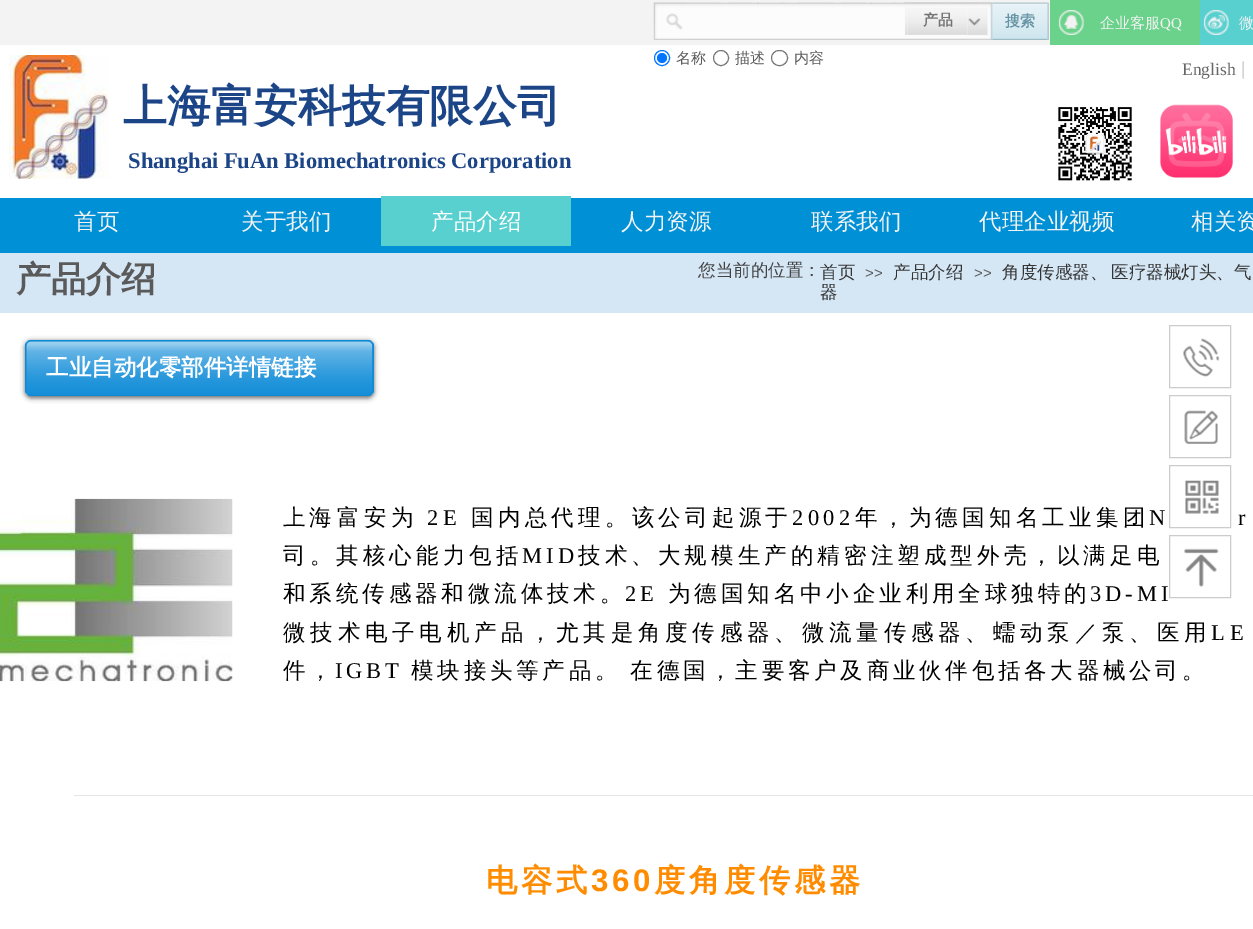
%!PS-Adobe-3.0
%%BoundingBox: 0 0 1253 929
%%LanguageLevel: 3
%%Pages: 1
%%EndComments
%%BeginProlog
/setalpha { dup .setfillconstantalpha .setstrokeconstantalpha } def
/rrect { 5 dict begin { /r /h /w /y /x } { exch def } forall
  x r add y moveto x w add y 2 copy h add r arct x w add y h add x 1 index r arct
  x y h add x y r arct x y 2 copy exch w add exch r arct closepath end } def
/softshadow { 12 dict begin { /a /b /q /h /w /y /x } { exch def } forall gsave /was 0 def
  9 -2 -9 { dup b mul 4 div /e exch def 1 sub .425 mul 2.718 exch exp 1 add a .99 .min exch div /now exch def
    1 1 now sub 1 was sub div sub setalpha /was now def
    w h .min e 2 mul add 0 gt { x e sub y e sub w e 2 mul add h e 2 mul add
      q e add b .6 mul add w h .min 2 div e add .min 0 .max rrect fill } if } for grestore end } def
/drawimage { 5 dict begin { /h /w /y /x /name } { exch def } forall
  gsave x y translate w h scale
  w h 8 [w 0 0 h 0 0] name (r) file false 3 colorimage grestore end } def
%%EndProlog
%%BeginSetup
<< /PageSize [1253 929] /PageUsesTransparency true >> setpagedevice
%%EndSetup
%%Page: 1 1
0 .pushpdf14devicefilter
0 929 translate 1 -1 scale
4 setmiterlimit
1 setgray
0 0 1253 929 rectfill
0.953 setgray
0 0 1050 45 rectfill
0.42 0.824 0.545 setrgbcolor
1050 0 150 45 rectfill
0.345 0.816 0.812 setrgbcolor
1200 0 53 45 rectfill
(images/1.raw) 653 2 32 38 drawimage
(images/2.raw) 685 2 307 38 drawimage
(images/3.raw) 903 2 5 33 drawimage
(images/4.raw) 907 2 61 33 drawimage
(images/6.raw) 991 2 2 38 drawimage
(images/5.raw) 967 2 25 38 drawimage
(images/7.raw) 992 2 56 38 drawimage
(images/8.raw) 1047 2 2 38 drawimage
0 0.459 1 setrgbcolor
newpath 662 58 7.5 0 360 arc closepath stroke
newpath 662 58 5 0 360 arc closepath fill
0.463 setgray
newpath 721 58 7.5 0 360 arc closepath stroke
771.5 50.5 16 15 7.5 rrect stroke
(images/9.raw) 1058 10 26 25 drawimage
(images/10.raw) 1203 10 26 25 drawimage
(images/11.raw) 9 55 100 124 drawimage
(images/12.raw) 1242 61 2 18 drawimage
(images/13.raw) 1058 107 74 74 drawimage
(images/14.raw) 1160 104 73 74 drawimage
0 0.565 0.839 setrgbcolor
0 198 1253 55 rectfill
0.345 0.816 0.812 setrgbcolor
381 196 190 50 rectfill
0.835 0.902 0.961 setrgbcolor
0 253 1253 60 rectfill
0 setgray
25 341 349 57 6 2.5 0.6 softshadow
0.055 0.545 0.843 setrgbcolor
25 340 349 56 6 rrect fill
(images/15.raw) 26 341 347 54 drawimage
(images/16.raw) 0 498 233 184 drawimage
0.898 setgray
74 795 1179 1 rectfill
0.8 setgray
1169.5 325.5 61 62 rectstroke
(images/17.raw) 1183 338 37 39 drawimage
1169.5 395.5 61 62 rectstroke
(images/18.raw) 1184 410 34 34 drawimage
1169.5 465.5 61 62 rectstroke
(images/19.raw) 1185 480 34 34 drawimage
1169.5 535.5 61 62 rectstroke
(images/20.raw) 1184 548 35 39 drawimage
/WenQuanYiZenHei-Bold [15 0 0 -15 0 0] selectfont
0.455 setgray
923 25 moveto (产品) show
0.4 0.58 0.643 setrgbcolor
1005 26 moveto (搜索) show
/WenQuanYiZenHei-Medium [15 0 0 -15 0 0] selectfont
0.353 setgray
676 63 moveto (名称) show
735 63 moveto (描述) show
794 63 moveto (内容) show
0.953 setgray
1100 28 moveto (企业客服) show
/LiberationSerif-Regular [15 0 0 -15 0 0] selectfont
1160 28 moveto (QQ) show
/WenQuanYiZenHei-Medium [15 0 0 -15 0 0] selectfont
1239 28 moveto (微) show
/LiberationSerif-Regular [17.5 0 0 -17.5 0 0] selectfont
0.4 setgray
1182 75 moveto (English) show
/WenQuanYiZenHei-Bold [43.75 0 0 -43.75 0 0] selectfont
0.11 0.271 0.529 setrgbcolor
123 121 moveto (上海富安科技有限公司) show
/LiberationSerif-Bold [22.5 0 0 -22.5 0 0] selectfont
128 168 moveto (Shanghai FuAn Biomechatronics Corporation) show
/WenQuanYiZenHei-Medium [22.5 0 0 -22.5 0 0] selectfont
0.953 setgray
74 229 moveto (首页) show
241 229 moveto (关于我们) show
1 setgray
431 229 moveto (产品介绍) show
0.953 setgray
621 229 moveto (人力资源) show
811 229 moveto (联系我们) show
979 229 moveto (代理企业视频) show
1191 229 moveto (相关资) show
/WenQuanYiZenHei-Bold [35 0 0 -35 0 0] selectfont
0.353 setgray
16 291 moveto (产品介绍) show
/WenQuanYiZenHei-Medium [17.5 0 0 -17.5 0 0] selectfont
0.263 setgray
698 276 moveto (您当前的位置：) show
0.2 setgray
820 278 moveto (首页) show
/LiberationSans-Regular [15 0 0 -15 0 0] selectfont
0.353 setgray
865 278 moveto (>>) show
/WenQuanYiZenHei-Medium [17.5 0 0 -17.5 0 0] selectfont
0.2 setgray
893 278 moveto (产品介绍) show
/LiberationSans-Regular [15 0 0 -15 0 0] selectfont
0.353 setgray
974 278 moveto (>>) show
/WenQuanYiZenHei-Medium [17.5 0 0 -17.5 0 0] selectfont
0.2 setgray
1002 278 moveto -1 0 32 (角度传感器、 医疗器械灯头、气) widthshow
820 298 moveto (器) show
/WenQuanYiZenHei-Bold [22.5 0 0 -22.5 0 0] selectfont
1 setgray
46 375 moveto (工业自动化零部件详情链接) show
/WenQuanYiZenHei-Medium [22.5 0 0 -22.5 0 0] selectfont
0 setgray
283 525 moveto 3.75 0 (上海) ashow
337 525 moveto 4.25 0 (富安为) ashow
/LiberationSerif-Regular [22.5 0 0 -22.5 0 0] selectfont
427 525 moveto 4.25 0 (2E) ashow
/WenQuanYiZenHei-Medium [22.5 0 0 -22.5 0 0] selectfont
471 525 moveto 4.25 0 (国内总代理。该公司起源于) ashow
/LiberationSerif-Regular [22.5 0 0 -22.5 0 0] selectfont
792 525 moveto 4.25 0 (2002) ashow
/WenQuanYiZenHei-Medium [22.5 0 0 -22.5 0 0] selectfont
855 525 moveto 4.25 0 (年，为德国知名工业集团) ashow
/LiberationSerif-Regular [22.5 0 0 -22.5 0 0] selectfont
1149 525 moveto 4.25 0 (N) ashow
1238 525 moveto 4.25 0 (r) ashow
/WenQuanYiZenHei-Medium [22.5 0 0 -22.5 0 0] selectfont
283 563 moveto 4.1 0 (司。其核心能力包括) ashow
/LiberationSerif-Regular [22.5 0 0 -22.5 0 0] selectfont
522 563 moveto 4.1 0 (MID) ashow
/WenQuanYiZenHei-Medium [22.5 0 0 -22.5 0 0] selectfont
578 563 moveto 4.1 0 (技术、大规模生产的精密注塑成型外壳，以满足电) ashow
283 601 moveto 3.9 0 (和系统传感器和微流体技术。) ashow
/LiberationSerif-Regular [22.5 0 0 -22.5 0 0] selectfont
625 601 moveto 3.9 0 (2E) ashow
/WenQuanYiZenHei-Medium [22.5 0 0 -22.5 0 0] selectfont
668 601 moveto 3.9 0 (为德国知名中小企业利用全球独特的) ashow
/LiberationSerif-Regular [22.5 0 0 -22.5 0 0] selectfont
1090 601 moveto 3.9 0 (3D-MI) ashow
/WenQuanYiZenHei-Medium [22.5 0 0 -22.5 0 0] selectfont
283 640 moveto 4.8 0 (微技术电子电机产品，尤其是角度传感器、微流量传感器、蠕动泵／泵、医用) ashow
/LiberationSerif-Regular [22.5 0 0 -22.5 0 0] selectfont
1211 640 moveto 4.8 0 (LE) ashow
/WenQuanYiZenHei-Medium [22.5 0 0 -22.5 0 0] selectfont
283 678 moveto 3.75 0 (件，) ashow
/LiberationSerif-Regular [22.5 0 0 -22.5 0 0] selectfont
335 678 moveto 3.75 0 (IGBT) ashow
/WenQuanYiZenHei-Medium [22.5 0 0 -22.5 0 0] selectfont
411 678 moveto -1 0 32 3.75 0 (模块接头等产品。 在德国，主要客户及商业伙伴包括各大器械公司。) awidthshow
/WenQuanYiZenHei-Bold [31.25 0 0 -31.25 0 0] selectfont
1 0.549 0 setrgbcolor
486 891 moveto 3.75 0 (电容式) ashow
/LiberationSans-Bold [31.25 0 0 -31.25 0 0] selectfont
591 891 moveto 3.75 0 (360) ashow
/WenQuanYiZenHei-Bold [31.25 0 0 -31.25 0 0] selectfont
654 891 moveto 3.75 0 (度角度传感器) ashow
.poppdf14devicefilter showpage
%%EOF
